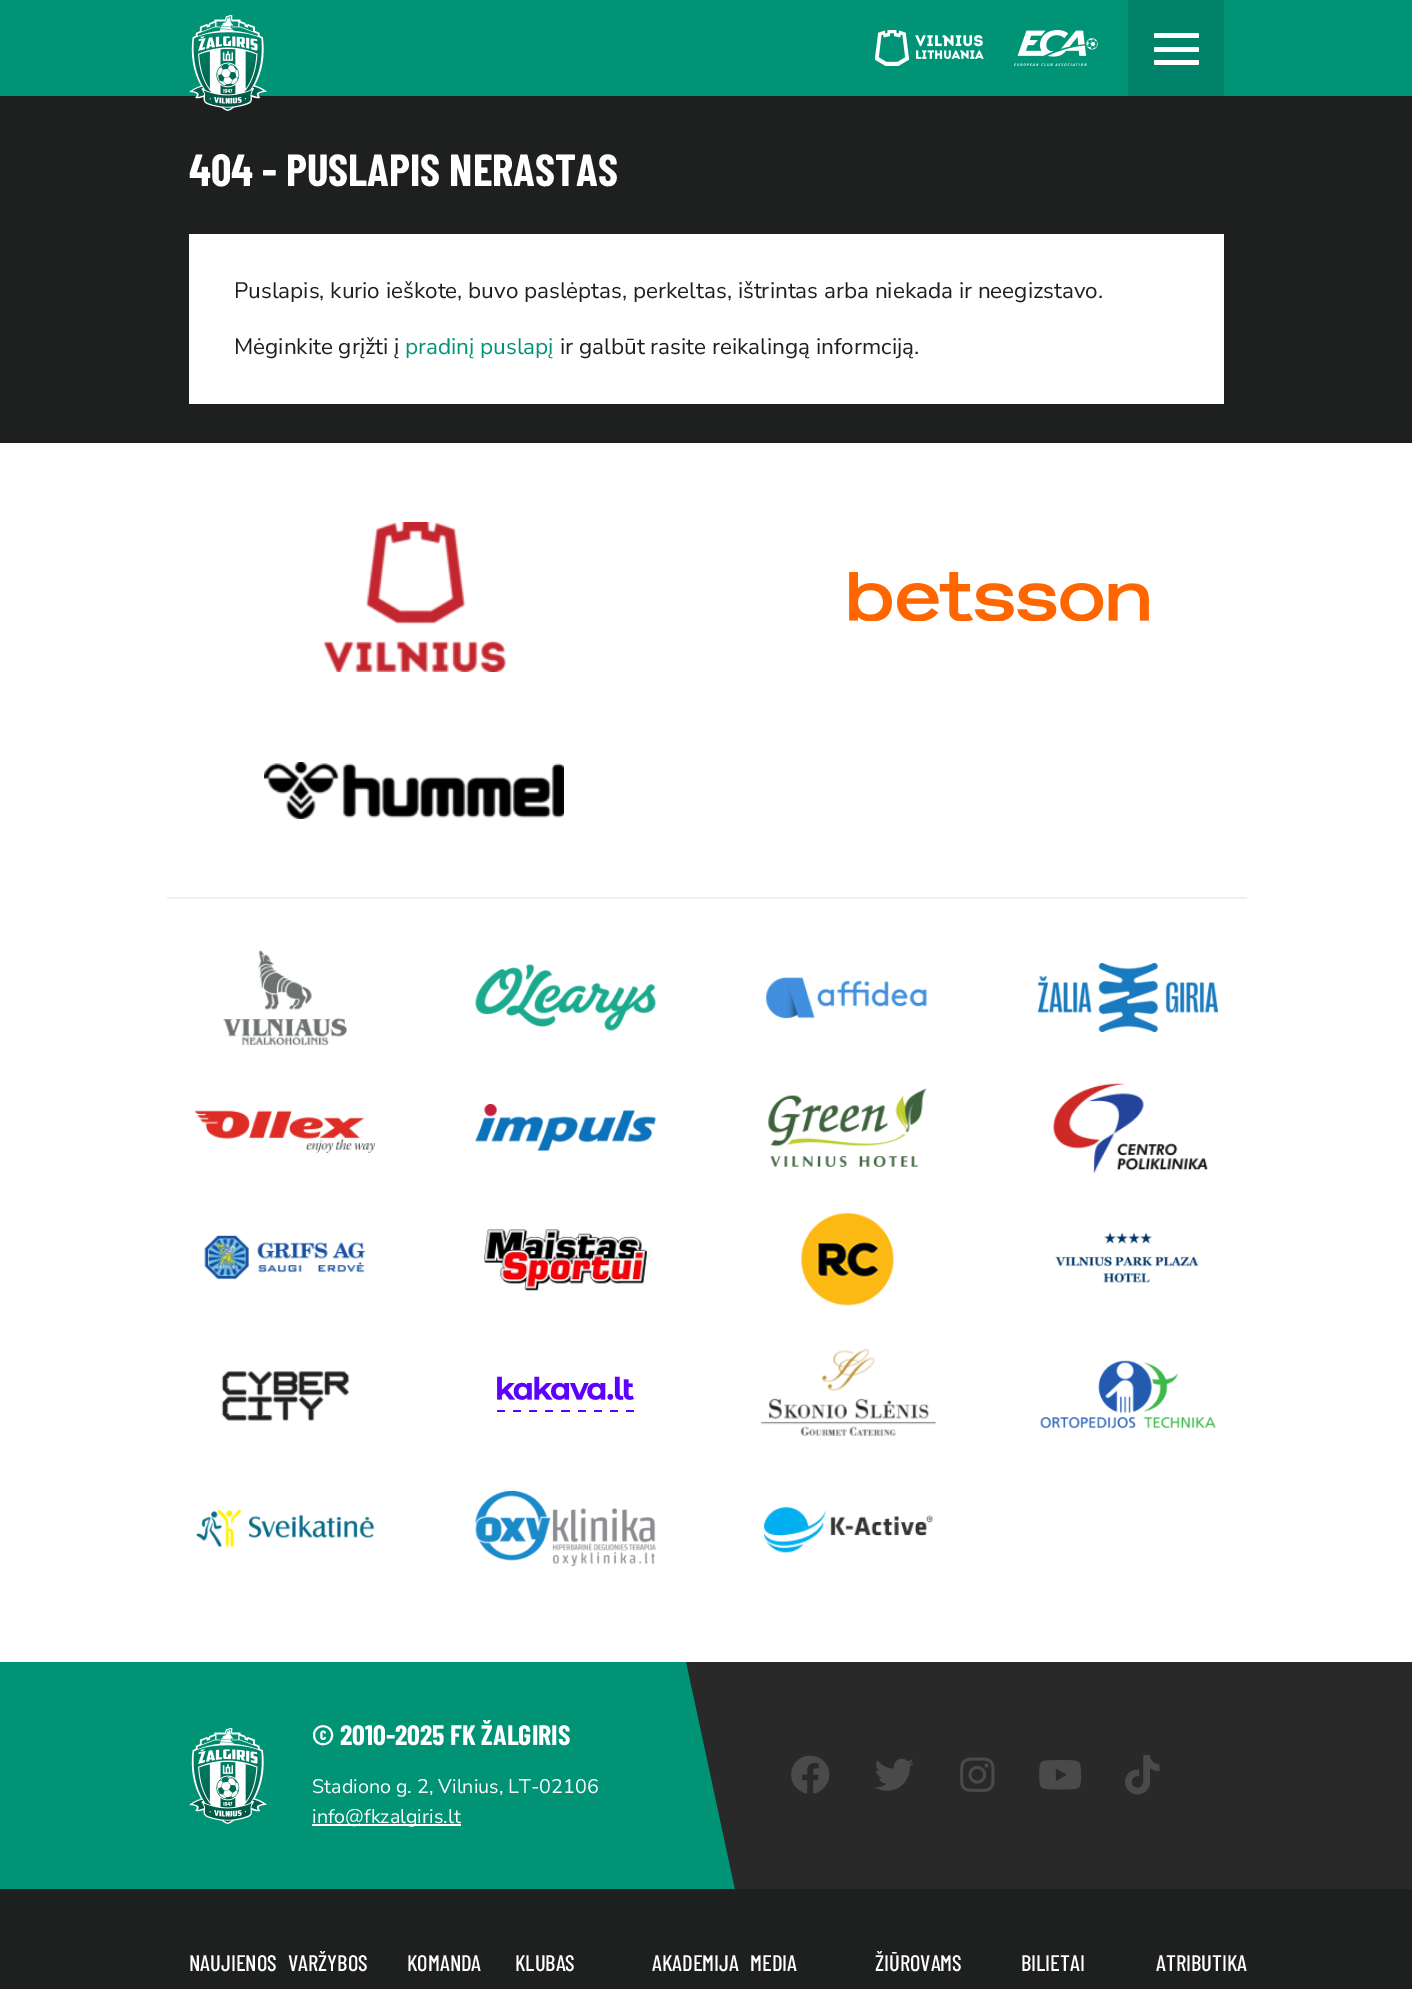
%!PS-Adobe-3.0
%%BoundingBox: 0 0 1412 1989
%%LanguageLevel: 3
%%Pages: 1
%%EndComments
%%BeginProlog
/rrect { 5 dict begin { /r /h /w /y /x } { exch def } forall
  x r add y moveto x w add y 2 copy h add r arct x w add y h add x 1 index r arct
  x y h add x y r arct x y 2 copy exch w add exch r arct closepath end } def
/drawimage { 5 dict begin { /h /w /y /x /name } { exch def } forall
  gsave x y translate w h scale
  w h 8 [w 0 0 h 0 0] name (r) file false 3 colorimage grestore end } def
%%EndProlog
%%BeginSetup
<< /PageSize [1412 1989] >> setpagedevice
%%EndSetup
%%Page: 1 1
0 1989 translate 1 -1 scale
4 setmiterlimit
0.118 0.122 0.122 setrgbcolor
0 0 1412 1989 rectfill
0 0.576 0.459 setrgbcolor
0 0 1412 96 rectfill
(images/1.raw) 189 15 78 96 drawimage
(images/2.raw) 875 30 109 36 drawimage
(images/3.raw) 1014 30 84 36 drawimage
0 0.514 0.408 setrgbcolor
1128 0 96 96 rectfill
1 setgray
1154 33 45 5 1.5 rrect fill
1154 47 45 5 1.5 rrect fill
1154 60 45 5 1.5 rrect fill
189 234 1035 170 rectfill
0 443 1412 1219 rectfill
(images/4.raw) 323 522 183 150 drawimage
(images/5.raw) 849 572 300 49 drawimage
(images/6.raw) 264 762 300 57 drawimage
0.929 0.937 0.949 setrgbcolor
167 897 1080 2 rectfill
(images/7.raw) 223 950 125 96 drawimage
(images/8.raw) 475 964 181 67 drawimage
(images/9.raw) 766 977 161 42 drawimage
(images/10.raw) 1038 963 180 69 drawimage
(images/11.raw) 195 1110 180 43 drawimage
(images/12.raw) 475 1104 181 47 drawimage
(images/13.raw) 768 1088 159 79 drawimage
(images/14.raw) 1053 1083 155 91 drawimage
(images/15.raw) 204 1235 162 45 drawimage
(images/16.raw) 484 1229 163 62 drawimage
(images/17.raw) 801 1213 93 93 drawimage
(images/18.raw) 1055 1232 144 51 drawimage
(images/19.raw) 221 1371 129 50 drawimage
(images/20.raw) 497 1376 137 36 drawimage
(images/21.raw) 760 1349 177 87 drawimage
(images/22.raw) 1040 1360 176 69 drawimage
(images/23.raw) 196 1509 179 39 drawimage
(images/24.raw) 475 1491 181 75 drawimage
(images/25.raw) 763 1506 171 47 drawimage
0 0.576 0.459 setrgbcolor
0 1662 735 227 rectfill
(images/26.raw) 189 1728 78 96 drawimage
1 setgray
312 1824 149 2 rectfill
gsave
0 1662 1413 227 rectclip
0.161 setgray
newpath 686 1661 moveto 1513 1661 lineto 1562 1889 lineto 735 1889 lineto closepath fill
grestore
(images/27.raw) 791 1755 39 39 drawimage
(images/28.raw) 875 1758 39 33 drawimage
(images/29.raw) 960 1757 35 35 drawimage
(images/30.raw) 1039 1760 43 30 drawimage
(images/31.raw) 1125 1755 35 40 drawimage
/BarlowCondensed-Bold [45 0 0 -45 0 0] selectfont
189 186 moveto (404 - PUSLAPIS NERASTAS) show
/NunitoSans-Regular [22.5 0 0 -22.5 0 0] selectfont
0.118 0.122 0.122 setrgbcolor
234 298 moveto (Puslapis, kurio ieškote, buvo paslėptas, perkeltas, ištrintas arba niekada ir neegizstavo.) show
234 354 moveto (Mėginkite grįžti į) show
0 0.576 0.459 setrgbcolor
405 354 moveto (pradinį puslapį) show
0.118 0.122 0.122 setrgbcolor
560 354 moveto (ir galbūt rasite reikalingą informciją.) show
/BarlowCondensed-Bold [28.1 0 0 -28.1 0 0] selectfont
1 setgray
312 1745 moveto (© 2010-2025 FK ŽALGIRIS) show
/NunitoSans-Regular [19.75 0 0 -19.75 0 0] selectfont
312 1793 moveto (Stadiono g. 2, Vilnius, LT-02106) show
312 1823 moveto (info@fkzalgiris.lt) show
/BarlowCondensed-Medium [22.5 0 0 -22.5 0 0] selectfont
189 1971 moveto (NAUJIENOS) show
288 1971 moveto (VARŽYBOS) show
407 1971 moveto (KOMANDA) show
515 1971 moveto (KLUBAS) show
652 1971 moveto (AKADEMIJA) show
750 1971 moveto (MEDIA) show
875 1971 moveto (ŽIŪROVAMS) show
1021 1971 moveto (BILIETAI) show
1156 1971 moveto (ATRIBUTIKA) show
showpage
%%EOF
